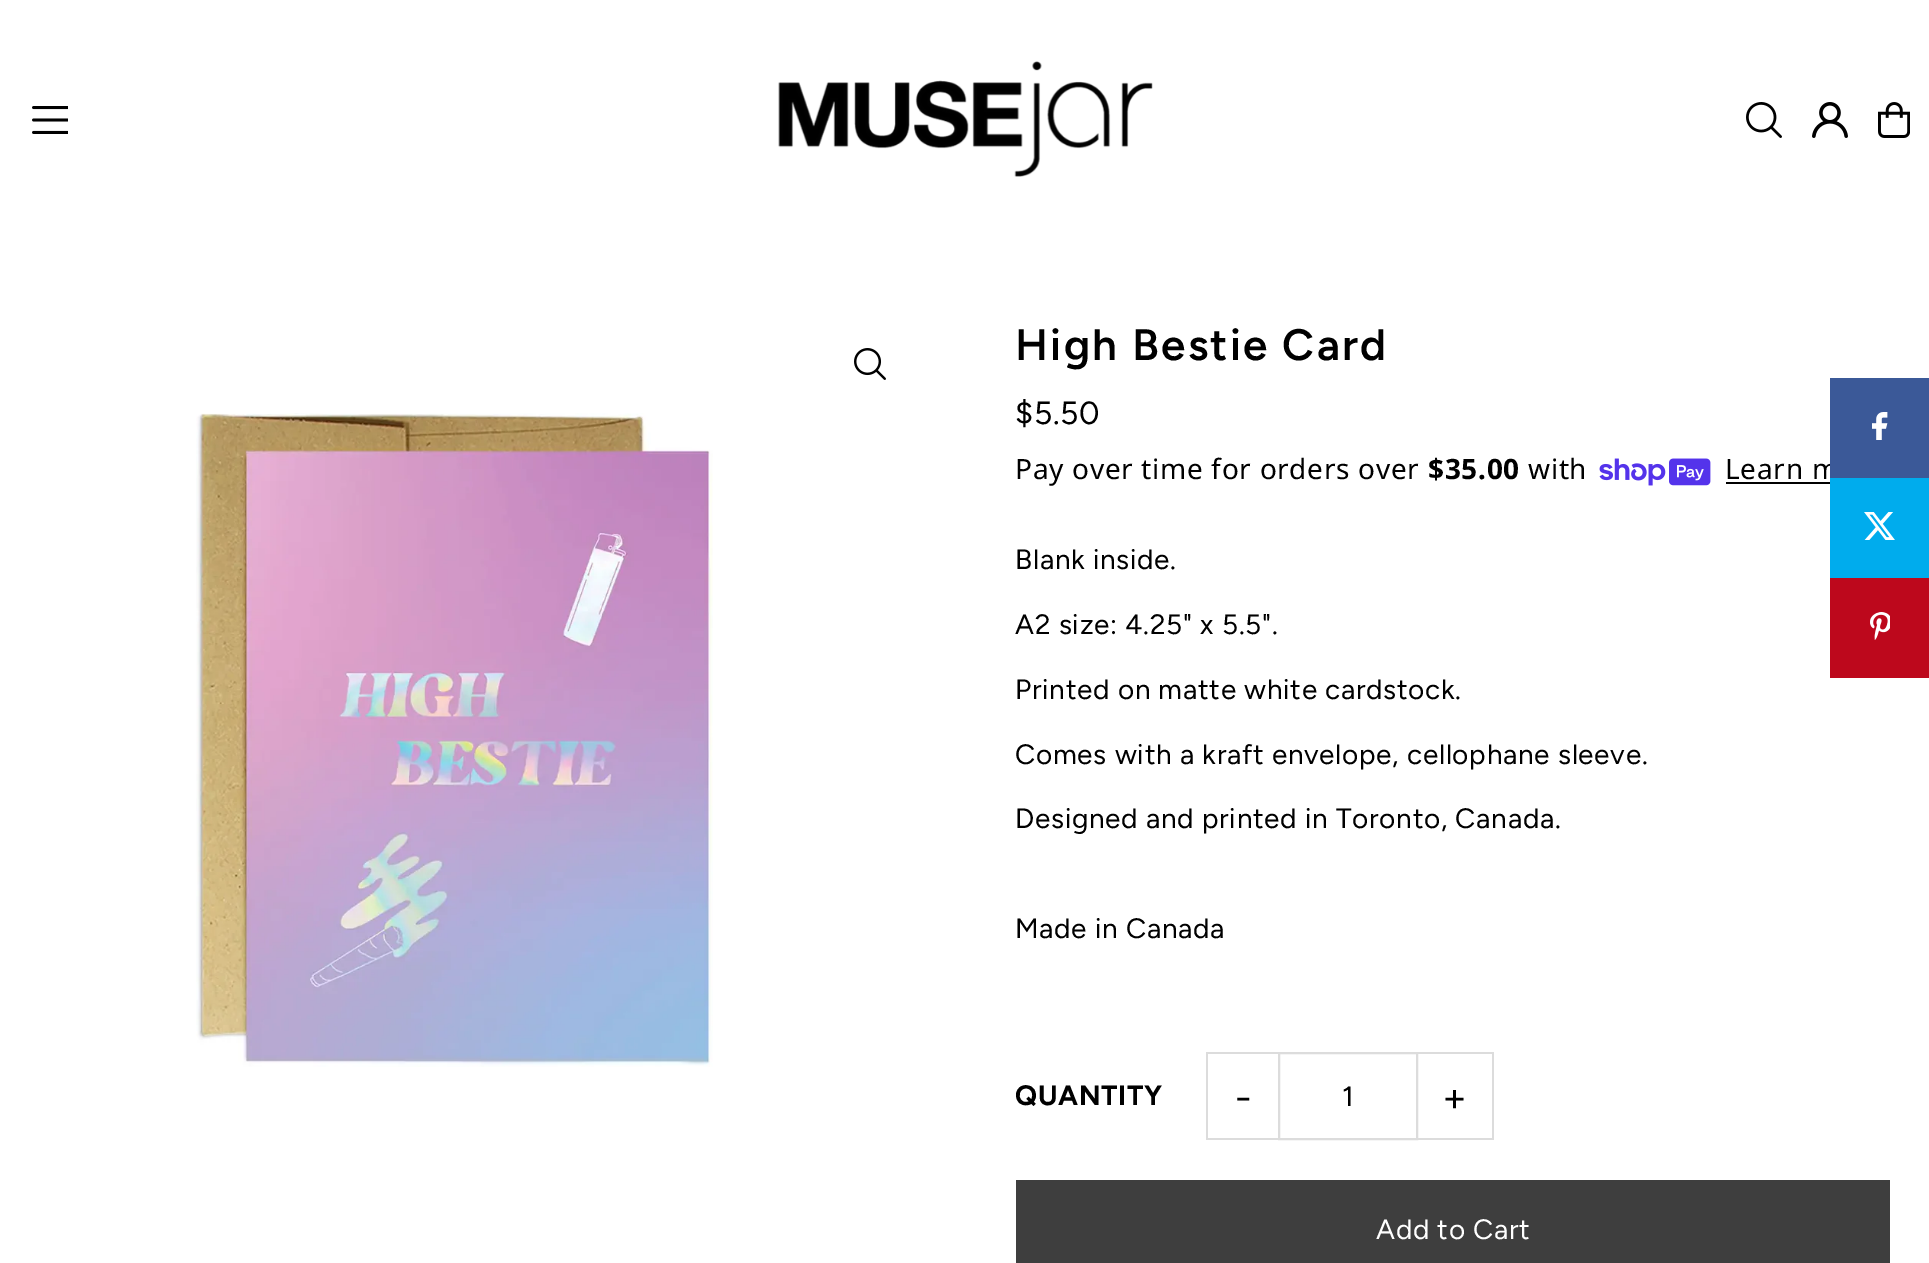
%!PS-Adobe-3.0
%%BoundingBox: 0 0 1929 1263
%%LanguageLevel: 3
%%Pages: 1
%%EndComments
%%BeginProlog
/drawimage { 5 dict begin { /h /w /y /x /name } { exch def } forall
  gsave x y translate w h scale
  w h 8 [w 0 0 h 0 0] name (r) file false 3 colorimage grestore end } def
%%EndProlog
%%BeginSetup
<< /PageSize [1929 1263] >> setpagedevice
%%EndSetup
%%Page: 1 1
0 1263 translate 1 -1 scale
4 setmiterlimit
1 setgray
0 0 1929 1263 rectfill
(images/1.raw) 32 106 36 28 drawimage
(images/2.raw) 778 61 375 116 drawimage
(images/3.raw) 1746 102 36 36 drawimage
(images/4.raw) 1812 102 36 36 drawimage
(images/5.raw) 1878 102 32 36 drawimage
(images/6.raw) 854 348 32 32 drawimage
(images/7.raw) 196 413 517 654 drawimage
(images/8.raw) 1599 458 112 28 drawimage
0 setgray
1726 482 104 2 rectfill
0.863 setgray
1206 1052 76 2 rectfill
1206 1138 76 2 rectfill
1206 1052 2 88 rectfill
2 setlinewidth
1279 1053 138 86 rectstroke
1418 1052 76 2 rectfill
1492 1052 2 88 rectfill
1418 1138 76 2 rectfill
0.243 setgray
1016 1180 874 83 rectfill
0.741 0.031 0.11 setrgbcolor
1830 578 99 100 rectfill
(images/11.raw) 1870 612 20 28 drawimage
/Figtree-SemiBold [44 0 0 -44 0 0] selectfont
0 setgray
1015 360 moveto 2.25 0 (High Bestie Card) ashow
/Figtree-Regular [32 0 0 -32 0 0] selectfont
1015 424 moveto 0.7 0 ($5.50) ashow
/NotoSans-Regular [28 0 0 -28 0 0] selectfont
1015 479 moveto 0.7 0 (Pay over time for orders over) ashow
/NotoSans-Bold [28 0 0 -28 0 0] selectfont
1428 479 moveto 0.7 0 ($35.00) ashow
/NotoSans-Regular [28 0 0 -28 0 0] selectfont
1528 479 moveto 0.7 0 (with) ashow
1725 479 moveto 0.7 0 (Learn m) ashow
/Figtree-Regular [28 0 0 -28 0 0] selectfont
1015 569 moveto 0.7 0 (Blank inside.) ashow
1015 634 moveto 0.7 0 (A2 size: 4.25" x 5.5".) ashow
1015 699 moveto 0.7 0 (Printed on matte white cardstock.) ashow
1015 764 moveto 0.7 0 (Comes with a kraft envelope, cellophane sleeve.) ashow
1015 828 moveto 0.7 0 (Designed and printed in Toronto, Canada.) ashow
1015 938 moveto 0.7 0 (Made in Canada) ashow
/Figtree-Bold [28 0 0 -28 0 0] selectfont
1015 1105 moveto 0.7 0 (QUANTITY) ashow
/Figtree-Regular [40 0 0 -40 0 0] selectfont
1235 1111 moveto 1 0 (-) ashow
/Figtree-Regular [28 0 0 -28 0 0] selectfont
1342 1106 moveto 0.7 0 (1) ashow
/Figtree-Regular [40 0 0 -40 0 0] selectfont
1442 1111 moveto 1 0 (+) ashow
/Figtree-Regular [28 0 0 -28 0 0] selectfont
1 setgray
1376 1239 moveto 0.7 0 (Add to Cart) ashow
0.231 0.349 0.596 setrgbcolor
1830 378 99 100 rectfill
(images/9.raw) 1872 412 16 28 drawimage
0 0.675 0.929 setrgbcolor
1830 478 99 100 rectfill
(images/10.raw) 1864 512 31 28 drawimage
showpage
%%EOF
